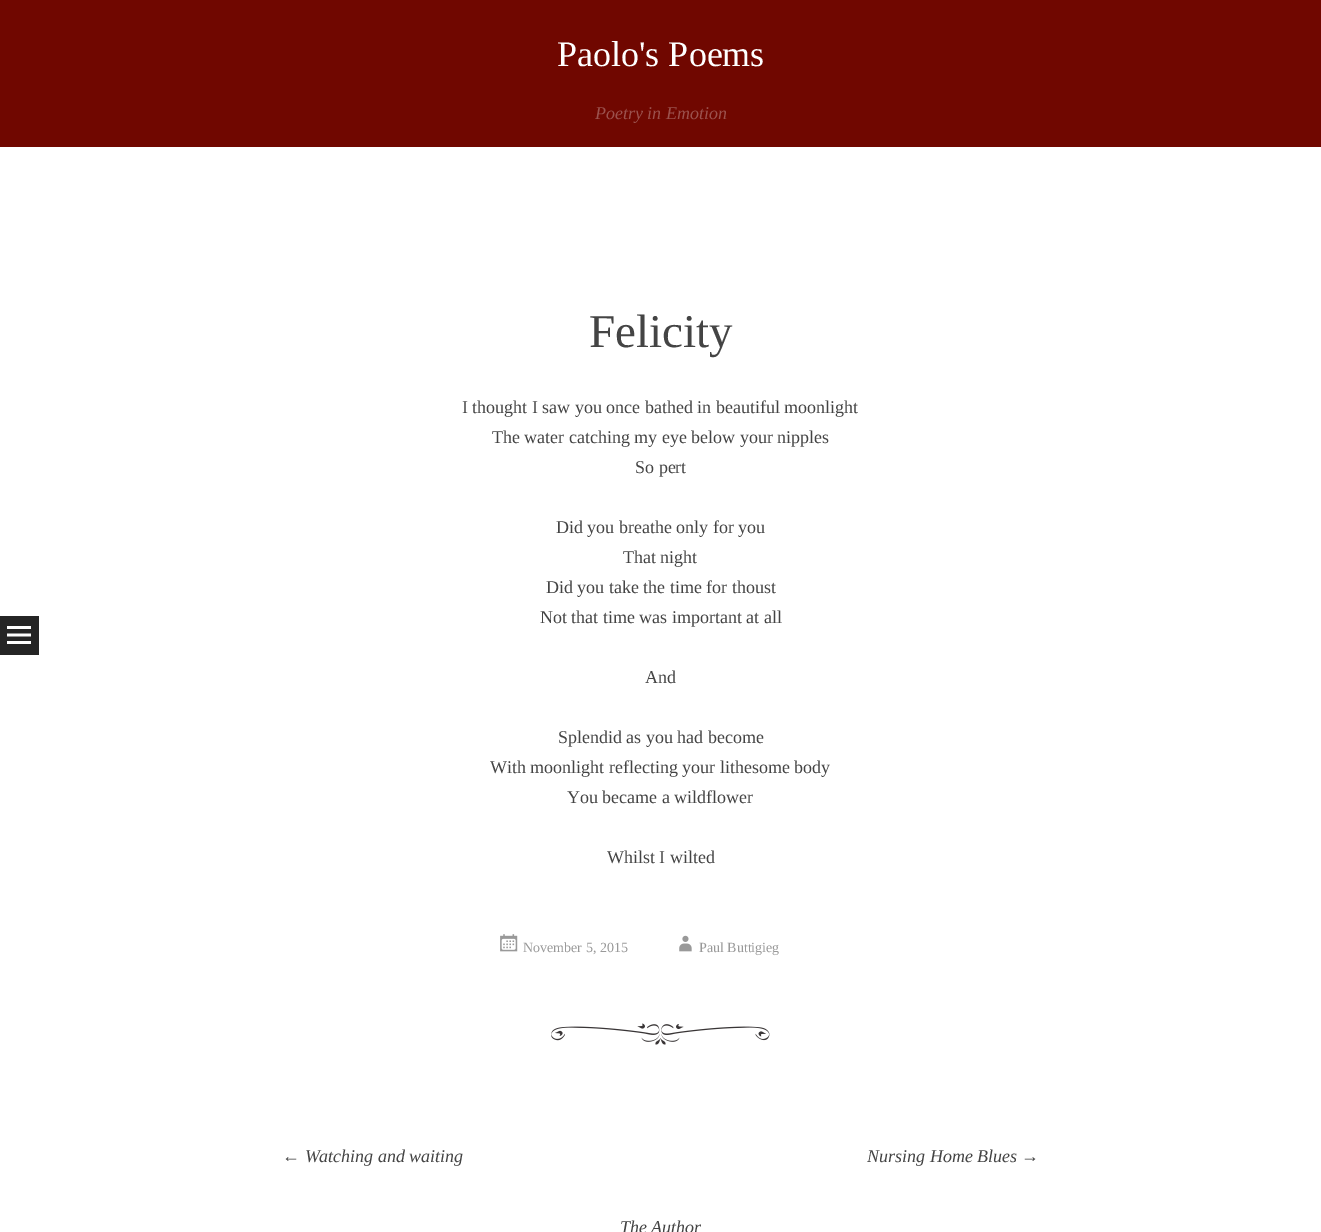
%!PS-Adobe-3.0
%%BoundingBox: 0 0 1321 1232
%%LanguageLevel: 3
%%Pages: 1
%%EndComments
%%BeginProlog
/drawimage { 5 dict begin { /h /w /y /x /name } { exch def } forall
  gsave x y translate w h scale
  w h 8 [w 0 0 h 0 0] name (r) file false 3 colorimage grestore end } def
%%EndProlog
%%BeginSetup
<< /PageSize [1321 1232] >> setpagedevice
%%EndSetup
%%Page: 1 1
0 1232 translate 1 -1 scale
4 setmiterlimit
1 setgray
0 0 1321 1232 rectfill
0.439 0.027 0 setrgbcolor
0 0 1321 147 rectfill
0.145 setgray
0 616 39 39 rectfill
(images/1.raw) 7 626 24 18 drawimage
(images/2.raw) 500 934 18 18 drawimage
(images/3.raw) 679 935 13 17 drawimage
(images/4.raw) 551 1023 219 22 drawimage
/LiberationSerif-Regular [36 0 0 -36 0 0] selectfont
1 setgray
557 66 moveto (Paolo's Poems) show
/LiberationSerif-Italic [18 0 0 -18 0 0] selectfont
0.608 0.318 0.302 setrgbcolor
595 119 moveto (Poetry in Emotion) show
/LiberationSerif-Regular [47 0 0 -47 0 0] selectfont
0.267 setgray
589 347 moveto (Felicity) show
/LiberationSerif-Regular [18 0 0 -18 0 0] selectfont
462 413 moveto (I thought I saw you once bathed in beautiful moonlight) show
492 443 moveto (The water catching my eye below your nipples) show
635 473 moveto (So pert) show
556 533 moveto (Did you breathe only for you) show
623 563 moveto (That night) show
546 593 moveto (Did you take the time for thoust) show
540 623 moveto (Not that time was important at all) show
645 683 moveto (And) show
558 743 moveto (Splendid as you had become) show
490 773 moveto (With moonlight reflecting your lithesome body) show
567 803 moveto (You became a wildflower) show
607 863 moveto (Whilst I wilted) show
/LiberationSerif-Regular [14 0 0 -14 0 0] selectfont
0.6 setgray
523 952 moveto (November 5, 2015) show
699 952 moveto (Paul Buttigieg) show
/LiberationSerif-Italic [18 0 0 -18 0 0] selectfont
0.267 setgray
282 1162 moveto (← Watching and waiting) show
867 1162 moveto (Nursing Home Blues →) show
620 1233 moveto (The Author) show
showpage
%%EOF
